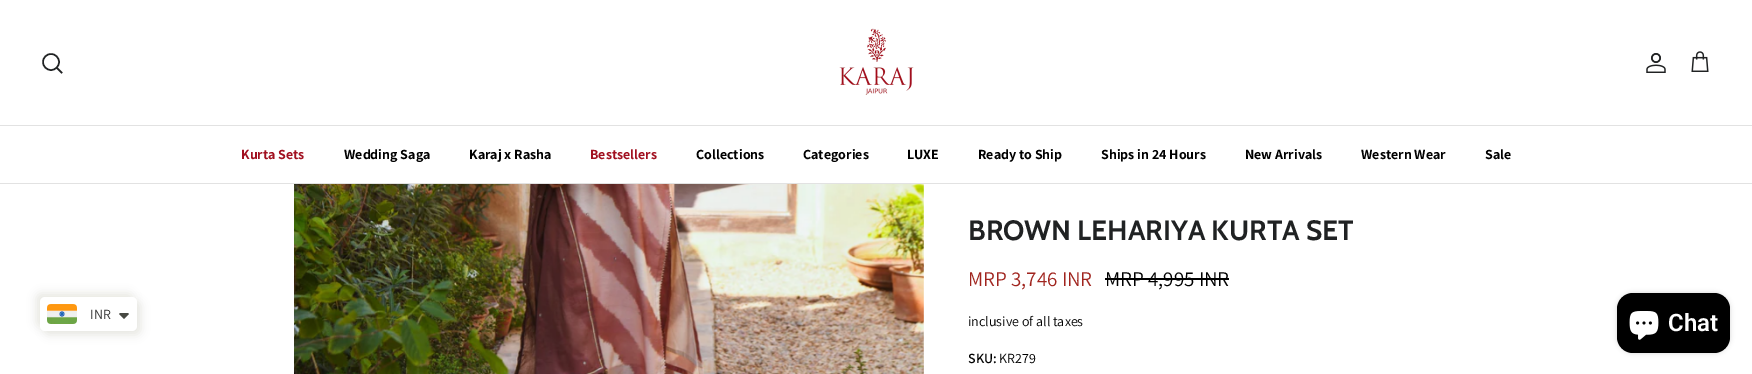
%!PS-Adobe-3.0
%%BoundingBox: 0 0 1752 374
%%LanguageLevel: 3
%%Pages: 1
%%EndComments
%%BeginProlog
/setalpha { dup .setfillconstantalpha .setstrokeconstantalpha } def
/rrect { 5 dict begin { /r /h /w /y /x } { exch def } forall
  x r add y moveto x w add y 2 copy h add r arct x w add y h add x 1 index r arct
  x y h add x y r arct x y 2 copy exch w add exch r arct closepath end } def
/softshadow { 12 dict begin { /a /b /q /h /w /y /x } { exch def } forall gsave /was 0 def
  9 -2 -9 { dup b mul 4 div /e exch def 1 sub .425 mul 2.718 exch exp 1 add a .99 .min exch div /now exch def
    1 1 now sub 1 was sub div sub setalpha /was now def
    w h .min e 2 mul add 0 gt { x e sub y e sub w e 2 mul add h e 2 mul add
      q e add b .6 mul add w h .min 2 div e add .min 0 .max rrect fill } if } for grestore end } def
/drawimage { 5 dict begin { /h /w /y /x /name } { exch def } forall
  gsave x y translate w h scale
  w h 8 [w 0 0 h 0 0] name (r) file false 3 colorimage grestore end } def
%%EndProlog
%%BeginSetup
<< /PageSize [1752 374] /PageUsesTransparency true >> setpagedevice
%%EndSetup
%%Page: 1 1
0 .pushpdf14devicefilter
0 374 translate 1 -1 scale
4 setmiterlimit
1 setgray
0 0 1752 374 rectfill
0.886 setgray
0 125 1752 1 rectfill
0.125 0.133 0.137 setrgbcolor
1.5 setlinewidth
newpath 51 62 8 0 360 arc closepath stroke
2 setlinecap
newpath 57 68 moveto 61.5 72.5 lineto stroke
(images/1.raw) 839 28 75 67 drawimage
(images/2.raw) 1646 53 20 20 drawimage
(images/3.raw) 1691 51 18 21 drawimage
0.886 setgray
0 183 1752 1 rectfill
0.91 0.91 0.886 setrgbcolor
36 293 97 34 5 4.5 1 softshadow
44 301 97 34 5 4.5 1 softshadow
1 setgray
40 297 97 34 5 rrect fill
(images/4.raw) 47 304 30 20 drawimage
0.278 0.286 0.259 setrgbcolor
newpath 121 313 moveto 120 313 119.5 313.5 119 314 curveto 124 319 lineto 129 314 lineto 128 313 lineto closepath fill
(images/5.raw) 294 184 630 190 drawimage
0 setgray
1105 278 124 2 rectfill
1617 293 113 60 16 2.5 0.15 softshadow
1617 293 113 60 16 rrect fill
(images/6.raw) 1629 311 30 29 drawimage
/Assistant-Bold [14 0 0 -14 0 0] selectfont
0.631 0.063 0.125 setrgbcolor
241 159 moveto (Kurta Sets) show
0 setgray
344 159 moveto (Wedding Saga) show
469 159 moveto (Karaj x Rasha) show
0.631 0.063 0.125 setrgbcolor
590 159 moveto (Bestsellers) show
0 setgray
696 159 moveto (Collections) show
803 159 moveto (Categories) show
907 159 moveto (LUXE) show
978 159 moveto (Ready to Ship) show
1101 159 moveto (Ships in 24 Hours) show
1245 159 moveto (New Arrivals) show
1361 159 moveto (Western Wear) show
1485 159 moveto (Sale) show
/Assistant-Regular [14 0 0 -14 0 0] selectfont
0.2 setgray
90 319 moveto (INR) show
/Cabin-Bold [28 0 0 -28 0 0] selectfont
0.125 0.133 0.137 setrgbcolor
968 240 moveto (BROWN LEHARIYA KURTA SET) show
/Assistant-Regular [21 0 0 -21 0 0] selectfont
0.627 0.141 0.118 setrgbcolor
968 286 moveto (MRP 3,746 INR) show
0 setgray
1105 286 moveto (MRP 4,995 INR) show
/Assistant-Regular [14 0 0 -14 0 0] selectfont
968 326 moveto (inclusive of all taxes) show
/Assistant-SemiBold [14 0 0 -14 0 0] selectfont
968 363 moveto (SKU:) show
/Assistant-Regular [14 0 0 -14 0 0] selectfont
999 363 moveto (KR279) show
/Roboto-SemiBold [24 0 0 -24 0 0] selectfont
1 setgray
1668 331 moveto (Chat) show
.poppdf14devicefilter showpage
%%EOF
